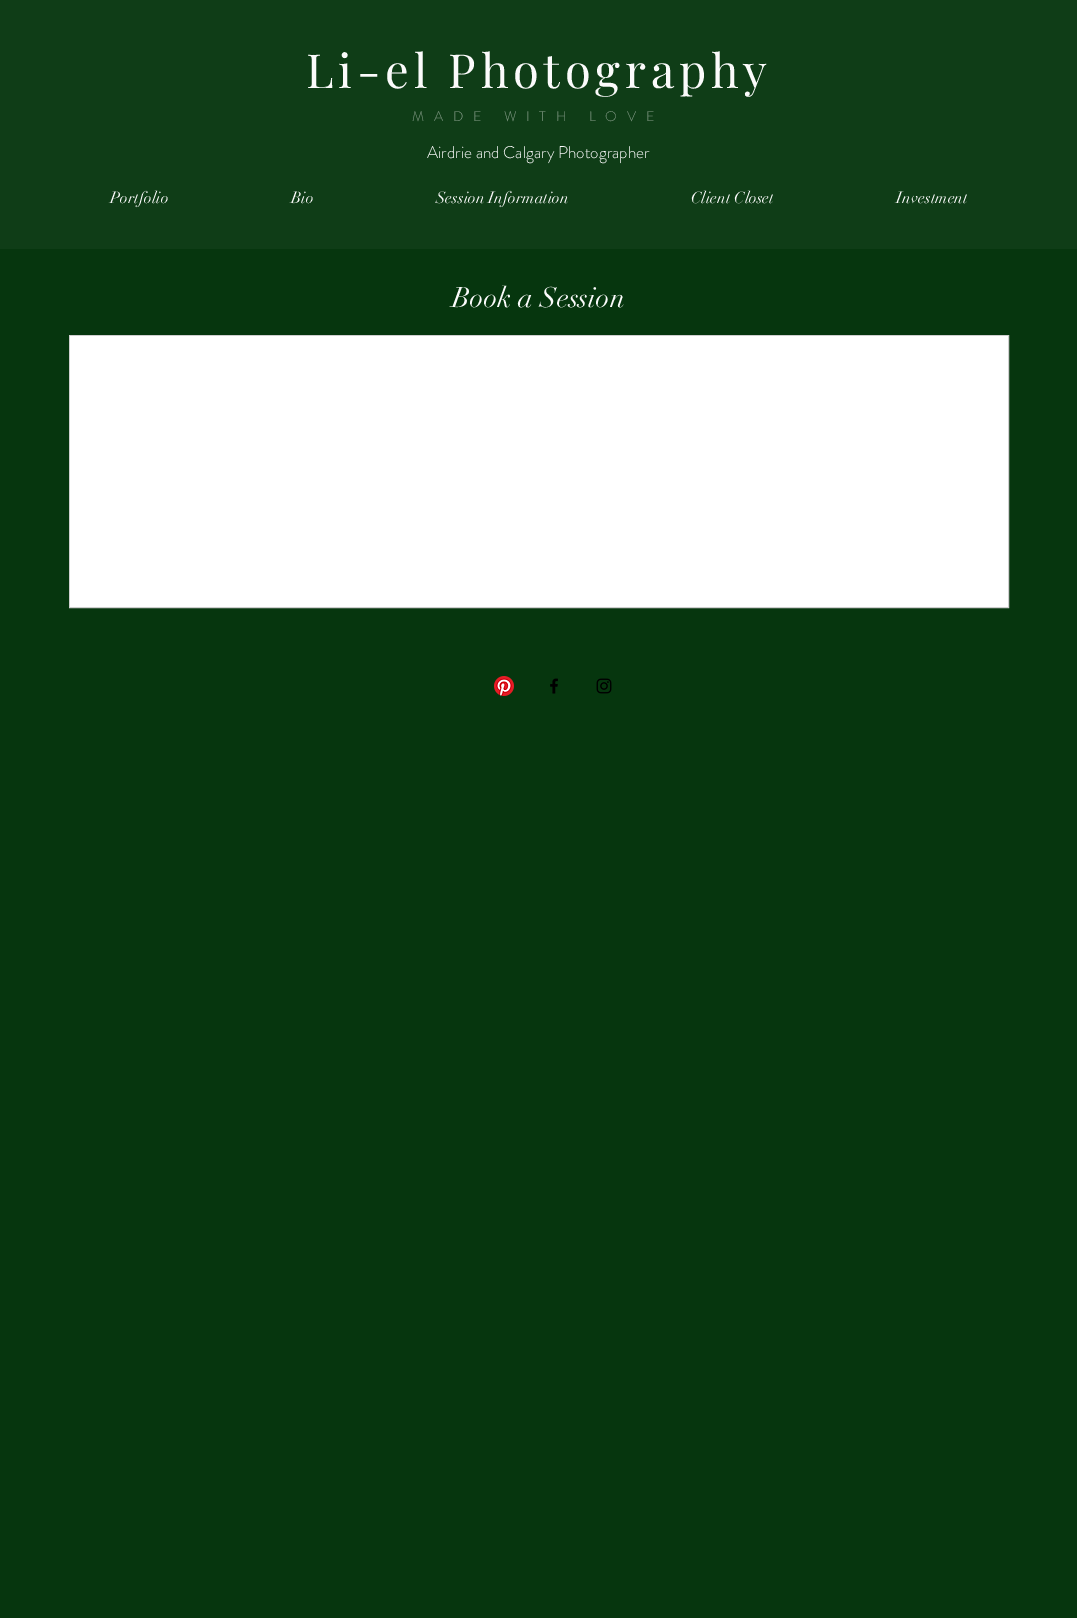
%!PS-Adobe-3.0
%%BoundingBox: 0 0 1077 1618
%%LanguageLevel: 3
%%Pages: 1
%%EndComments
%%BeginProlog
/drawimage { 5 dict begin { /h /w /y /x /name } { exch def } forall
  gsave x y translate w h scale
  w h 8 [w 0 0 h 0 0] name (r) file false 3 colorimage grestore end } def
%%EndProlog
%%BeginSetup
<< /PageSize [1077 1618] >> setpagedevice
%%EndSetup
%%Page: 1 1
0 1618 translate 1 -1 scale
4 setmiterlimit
0.024 0.212 0.055 setrgbcolor
0 0 1077 1618 rectfill
0.059 0.239 0.09 setrgbcolor
0 0 1077 249 rectfill
0.812 setgray
69.5 335.5 939 272 rectstroke
1 setgray
70 336 938 271 rectfill
(images/1.raw) 494 676 20 20 drawimage
(images/2.raw) 550 678 8 16 drawimage
(images/3.raw) 596 678 16 16 drawimage
/PlayfairDisplay-Regular [47 0 0 -47 0 0] selectfont
0.984 setgray
306 88 moveto 4.75 0 (Li-el Photography) ashow
/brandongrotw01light-Light [14 0 0 -14 0 0] selectfont
0.506 0.6 0.522 setrgbcolor
412 121 moveto 9.75 0 (MADE WITH LOVE) ashow
/brandongrotw01light-Light [17 0 0 -17 0 0] selectfont
0.984 setgray
427 158 moveto (Airdrie and Calgary Photographer) show
/didot-Regular [16 0 0 -16 0 0] selectfont
110 203 moveto (Portfolio) show
291 203 moveto (Bio) show
436 203 moveto (Session Information) show
691 203 moveto (Client Closet) show
896 203 moveto (Investment) show
/didot-Regular [28 0 0 -28 0 0] selectfont
452 307 moveto (Book a Session) show
showpage
%%EOF
